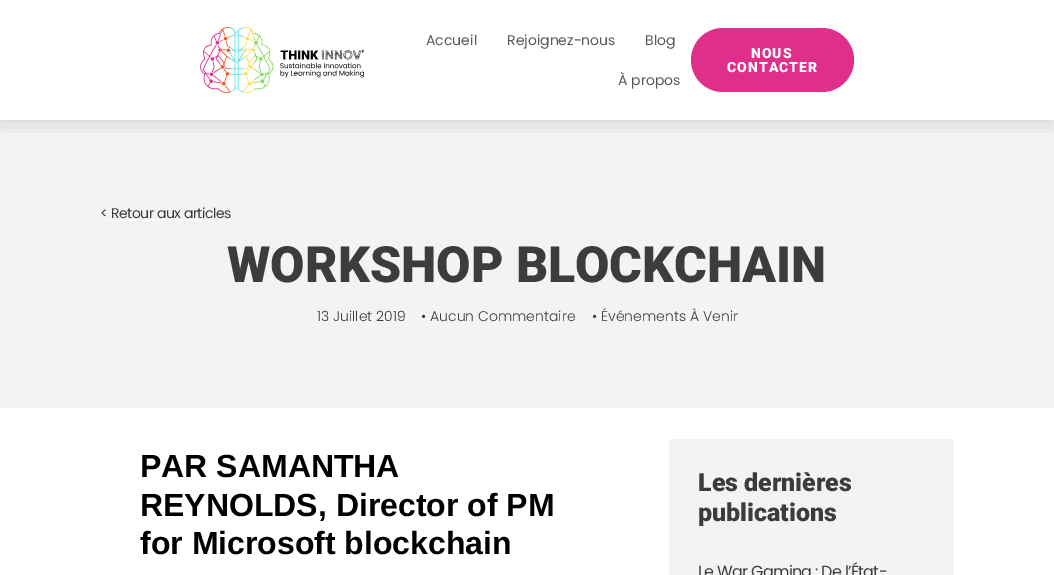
%!PS-Adobe-3.0
%%BoundingBox: 0 0 1054 575
%%LanguageLevel: 3
%%Pages: 1
%%EndComments
%%BeginProlog
/setalpha { dup .setfillconstantalpha .setstrokeconstantalpha } def
/rrect { 5 dict begin { /r /h /w /y /x } { exch def } forall
  x r add y moveto x w add y 2 copy h add r arct x w add y h add x 1 index r arct
  x y h add x y r arct x y 2 copy exch w add exch r arct closepath end } def
/softshadow { 12 dict begin { /a /b /q /h /w /y /x } { exch def } forall gsave /was 0 def
  9 -2 -9 { dup b mul 4 div /e exch def 1 sub .425 mul 2.718 exch exp 1 add a .99 .min exch div /now exch def
    1 1 now sub 1 was sub div sub setalpha /was now def
    w h .min e 2 mul add 0 gt { x e sub y e sub w e 2 mul add h e 2 mul add
      q e add b .6 mul add w h .min 2 div e add .min 0 .max rrect fill } if } for grestore end } def
/drawimage { 5 dict begin { /h /w /y /x /name } { exch def } forall
  gsave x y translate w h scale
  w h 8 [w 0 0 h 0 0] name (r) file false 3 colorimage grestore end } def
%%EndProlog
%%BeginSetup
<< /PageSize [1054 575] /PageUsesTransparency true >> setpagedevice
%%EndSetup
%%Page: 1 1
0 .pushpdf14devicefilter
0 575 translate 1 -1 scale
4 setmiterlimit
1 setgray
0 0 1054 575 rectfill
0.953 setgray
0 120 1054 288 rectfill
gsave
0 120 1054 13 rectclip
0 setgray
0 0 1054 120 0 12 0.15 softshadow
grestore
(images/1.raw) 200 27 164 66 drawimage
0.875 0.184 0.545 setrgbcolor
691 28 163 64 32 rrect fill
1 0.98 0.961 setrgbcolor
100 220 131 1 rectfill
0.953 setgray
669 439 285 136 rectfill
/Poppins-Regular [14 0 0 -14 0 0] selectfont
0.329 0.349 0.373 setrgbcolor
426 45 moveto (Accueil) show
507 45 moveto (Rejoignez-nous) show
645 45 moveto (Blog) show
618 85 moveto (À propos) show
/Roboto-Black [14 0 0 -14 0 0] selectfont
1 setgray
751 58 moveto 1 0 (NOUS) ashow
727 72 moveto 1 0 (CONTACTER) ashow
/Poppins-Regular [14 0 0 -14 0 0] selectfont
0.235 setgray
100 218 moveto -0.45 0 (< Retour aux articles) ashow
/Roboto-Black [50 0 0 -50 0 0] selectfont
227 282 moveto (WORKSHOP BLOCKCHAIN) show
/Poppins-Light [14 0 0 -14 0 0] selectfont
317 321 moveto (13 Juillet 2019) show
421 321 moveto (• Aucun Commentaire) show
592 321 moveto (• Événements À Venir) show
/LiberationSans-Bold [32 0 0 -32 0 0] selectfont
0 setgray
140 477 moveto (PAR SAMANTHA) show
140 516 moveto (REYNOLDS, Director of PM) show
140 554 moveto (for Microsoft blockchain) show
/Roboto-Black [25 0 0 -25 0 0] selectfont
0.235 setgray
698 491 moveto (Les dernières) show
698 521 moveto (publications) show
/Poppins-Regular [16 0 0 -16 0 0] selectfont
698 577 moveto -0.7 0 (Le War Gaming : De l’État-) ashow
.poppdf14devicefilter showpage
%%EOF
